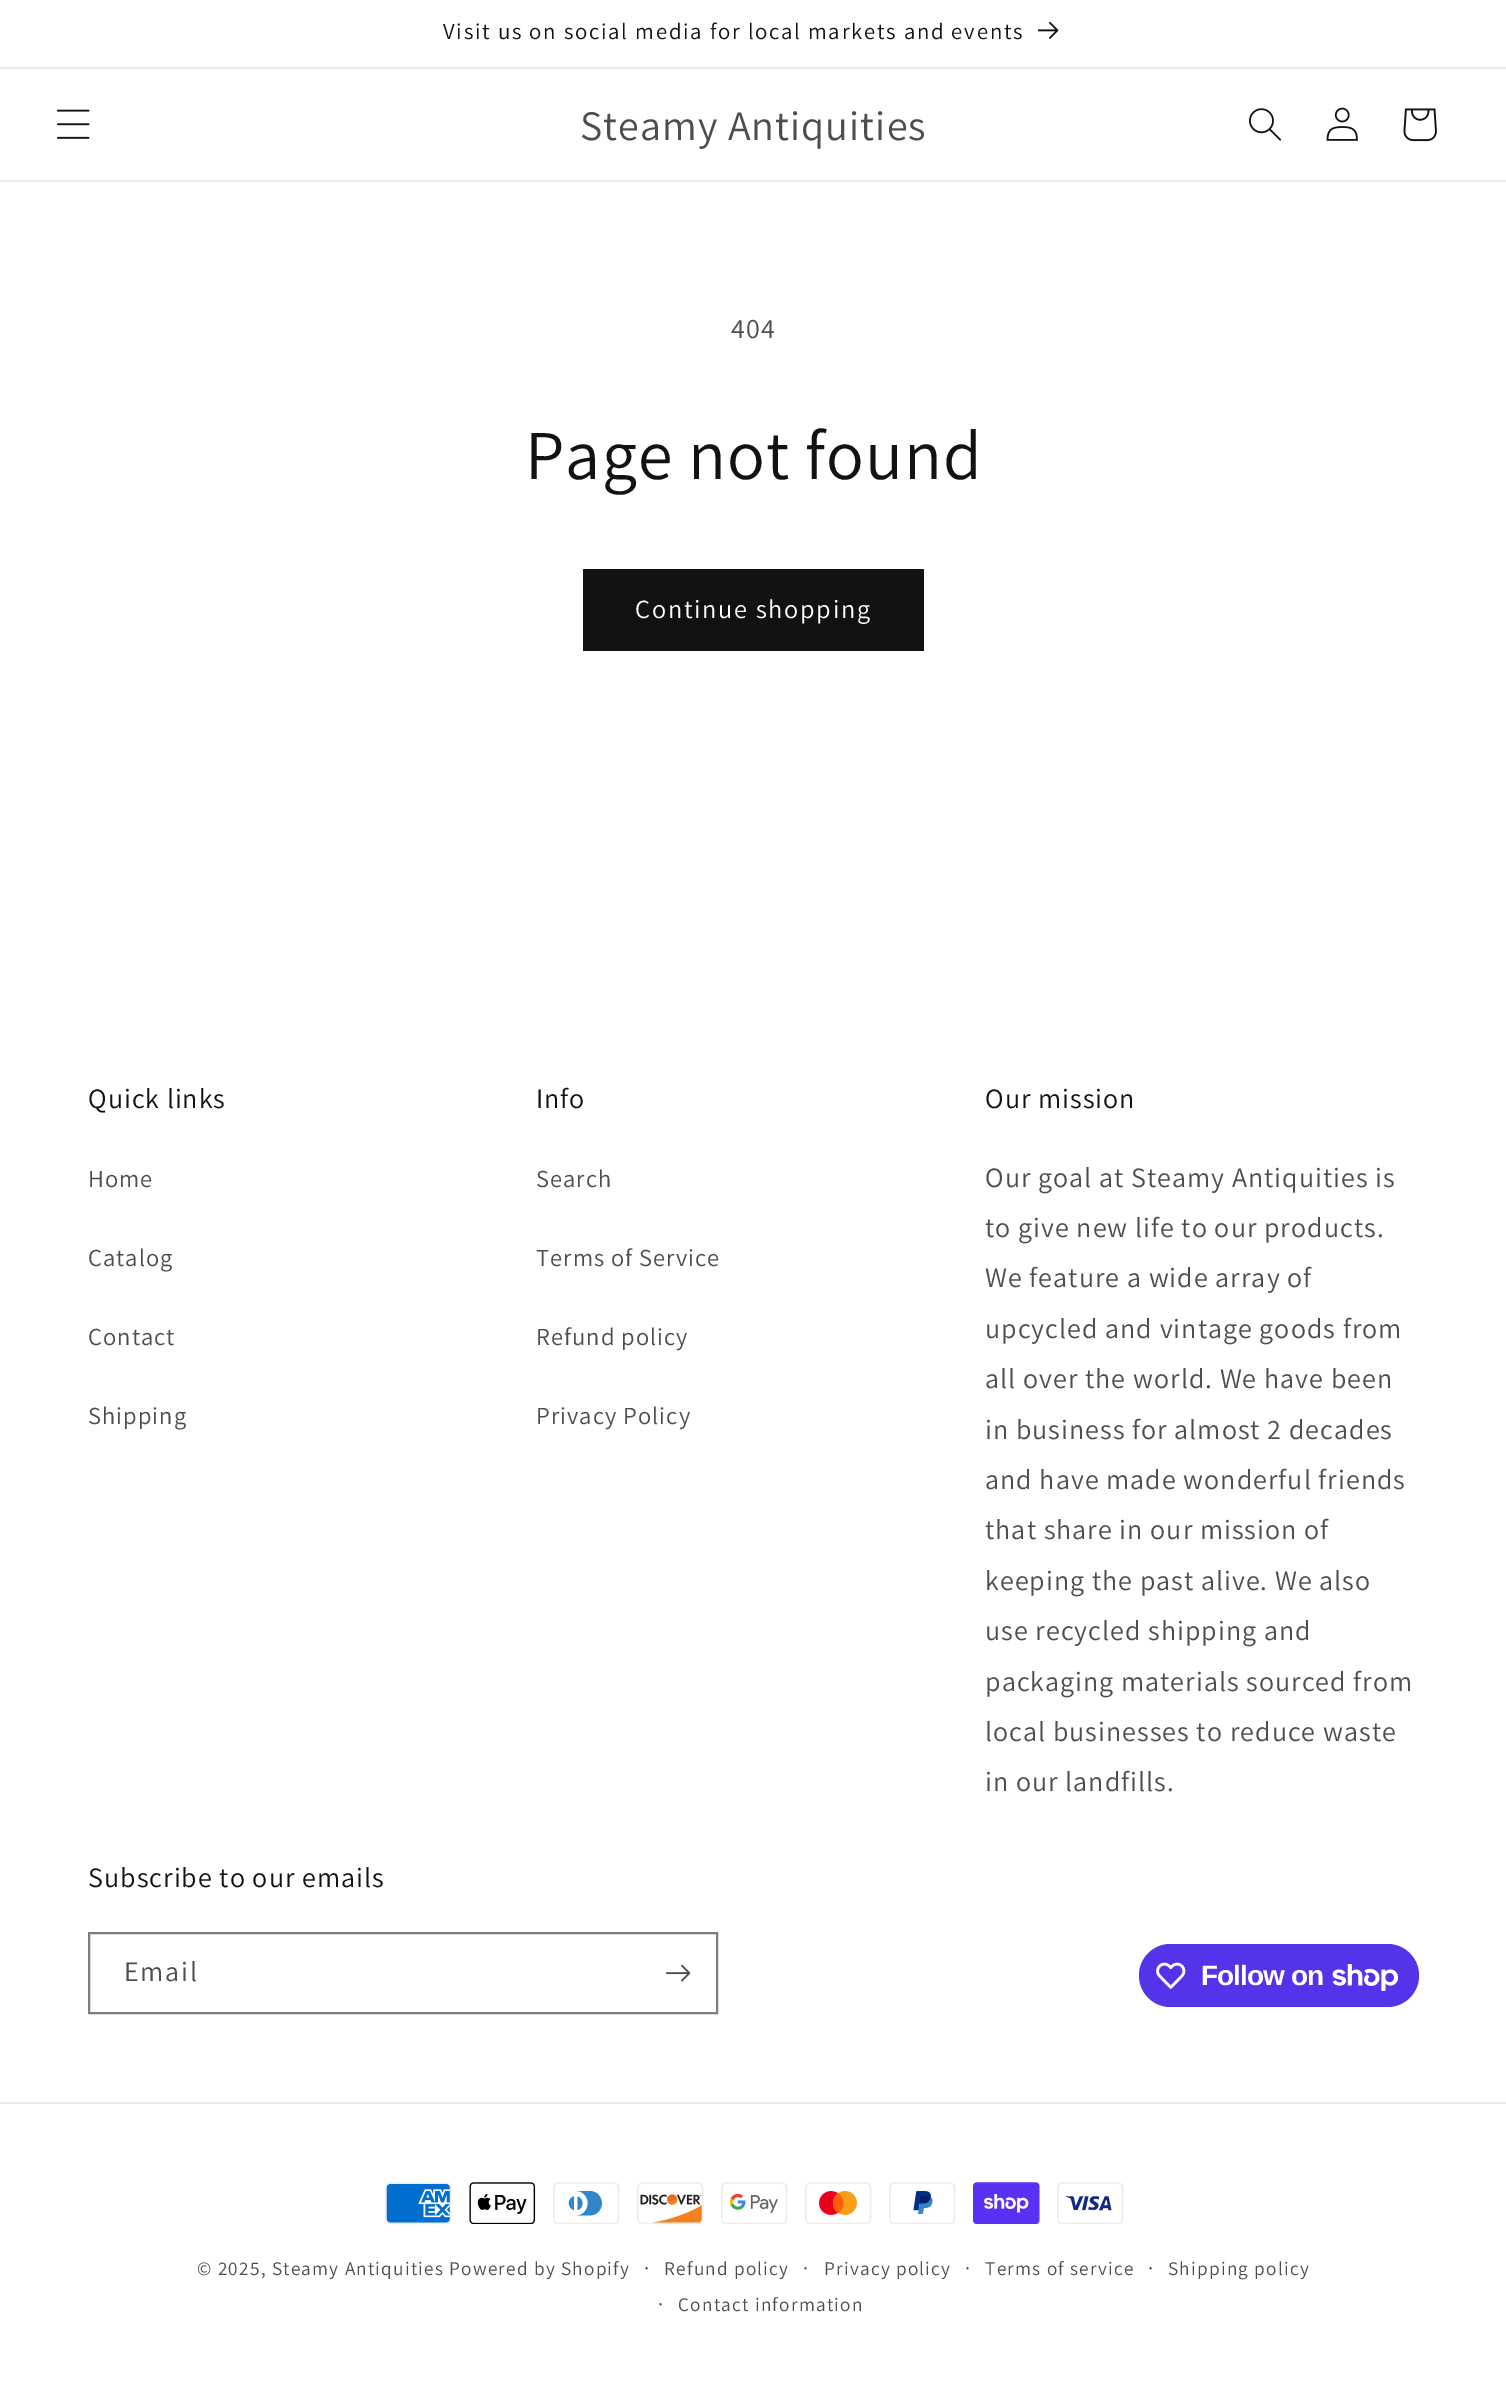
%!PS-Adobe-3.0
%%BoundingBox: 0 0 1506 2384
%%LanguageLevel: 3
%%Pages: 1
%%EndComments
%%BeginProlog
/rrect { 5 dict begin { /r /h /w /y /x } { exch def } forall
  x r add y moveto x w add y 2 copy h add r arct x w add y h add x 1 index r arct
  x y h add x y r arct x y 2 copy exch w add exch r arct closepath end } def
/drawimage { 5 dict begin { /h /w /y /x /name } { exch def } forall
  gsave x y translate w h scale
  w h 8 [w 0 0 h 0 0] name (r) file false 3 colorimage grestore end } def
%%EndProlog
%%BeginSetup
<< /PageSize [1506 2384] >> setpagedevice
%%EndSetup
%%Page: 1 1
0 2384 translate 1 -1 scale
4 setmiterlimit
1 setgray
0 0 1506 2384 rectfill
0.925 setgray
0 67 1506 2 rectfill
(images/1.raw) 1038 22 21 17 drawimage
0 180 1506 2 rectfill
(images/2.raw) 57 109 33 30 drawimage
(images/3.raw) 1249 108 32 33 drawimage
(images/4.raw) 1326 107 32 34 drawimage
(images/5.raw) 1403 108 34 34 drawimage
0.071 setgray
583 569 341 82 rectfill
0.49 setgray
2 setlinewidth
89 1933 628 80 rectstroke
(images/6.raw) 666 1964 25 18 drawimage
0.329 0.2 0.922 setrgbcolor
1139 1944 280 63 31.5 rrect fill
(images/7.raw) 1156 1962 30 27 drawimage
(images/8.raw) 1332 1964 66 27 drawimage
0.925 setgray
0 2102 1506 2 rectfill
(images/9.raw) 385 2182 67 42 drawimage
(images/10.raw) 469 2182 67 42 drawimage
(images/11.raw) 553 2182 67 42 drawimage
(images/12.raw) 637 2182 67 42 drawimage
(images/13.raw) 721 2182 67 42 drawimage
(images/14.raw) 805 2182 67 42 drawimage
(images/15.raw) 889 2182 67 42 drawimage
(images/16.raw) 973 2182 67 42 drawimage
(images/17.raw) 1057 2182 67 42 drawimage
/Assistant-Regular [22.75 0 0 -22.75 0 0] selectfont
0.071 setgray
443 39 moveto 1.75 0 (Visit us on social media for local markets and events) ashow
/Assistant-Regular [42 0 0 -42 0 0] selectfont
0.302 setgray
580 140 moveto 1.05 0 (Steamy Antiquities) ashow
/Assistant-Regular [28 0 0 -28 0 0] selectfont
731 338 moveto 1.05 0 (404) ashow
/Assistant-Regular [70 0 0 -70 0 0] selectfont
0.071 setgray
525 479 moveto 1.05 0 (Page not found) ashow
/Assistant-Regular [26.25 0 0 -26.25 0 0] selectfont
1 setgray
635 618 moveto 1.75 0 (Continue shopping) ashow
/Assistant-Regular [28 0 0 -28 0 0] selectfont
0.071 setgray
88 1108 moveto 1.05 0 (Quick links) ashow
/Assistant-Regular [24.5 0 0 -24.5 0 0] selectfont
0.302 setgray
88 1187 moveto 1.05 0 (Home) ashow
88 1266 moveto 1.05 0 (Catalog) ashow
88 1345 moveto 1.05 0 (Contact) ashow
88 1424 moveto 1.05 0 (Shipping) ashow
/Assistant-Regular [28 0 0 -28 0 0] selectfont
0.071 setgray
536 1108 moveto 1.05 0 (Info) ashow
/Assistant-Regular [24.5 0 0 -24.5 0 0] selectfont
0.302 setgray
536 1187 moveto 1.05 0 (Search) ashow
536 1266 moveto 1.05 0 (Terms of Service) ashow
536 1345 moveto 1.05 0 (Refund policy) ashow
536 1424 moveto 1.05 0 (Privacy Policy) ashow
/Assistant-Regular [28 0 0 -28 0 0] selectfont
0.071 setgray
985 1108 moveto 1.05 0 (Our mission) ashow
0.302 setgray
985 1187 moveto 1.05 0 (Our goal at Steamy Antiquities is) ashow
985 1237 moveto 1.05 0 (to give new life to our products.) ashow
985 1287 moveto 1.05 0 (We feature a wide array of) ashow
985 1338 moveto 1.05 0 (upcycled and vintage goods from) ashow
985 1388 moveto 1.05 0 (all over the world. We have been) ashow
985 1439 moveto 1.05 0 (in business for almost 2 decades) ashow
985 1489 moveto 1.05 0 (and have made wonderful friends) ashow
985 1539 moveto 1.05 0 (that share in our mission of) ashow
985 1590 moveto 1.05 0 (keeping the past alive. We also) ashow
985 1640 moveto 1.05 0 (use recycled shipping and) ashow
985 1691 moveto 1.05 0 (packaging materials sourced from) ashow
985 1741 moveto 1.05 0 (local businesses to reduce waste) ashow
985 1791 moveto 1.05 0 (in our landfills.) ashow
0.071 setgray
88 1887 moveto 1.05 0 (Subscribe to our emails) ashow
0.302 setgray
124 1981 moveto 1.75 0 (Email) ashow
/LiberationSans-Bold [28 0 0 -28 0 0] selectfont
1 setgray
1201 1985 moveto -0.9 0 (Follow on) ashow
/Assistant-Regular [19.25 0 0 -19.25 0 0] selectfont
0.302 setgray
197 2275 moveto 1.25 0 (© 2025, Steamy Antiquities) ashow
449 2275 moveto 1.25 0 (Powered by Shopify) ashow
/Assistant-Regular [21 0 0 -21 0 0] selectfont
644 2275 moveto 1.25 0 (·) ashow
/Assistant-Regular [19.25 0 0 -19.25 0 0] selectfont
664 2275 moveto 1.25 0 (Refund policy) ashow
/Assistant-Regular [21 0 0 -21 0 0] selectfont
803 2275 moveto 1.25 0 (·) ashow
/Assistant-Regular [19.25 0 0 -19.25 0 0] selectfont
824 2275 moveto 1.25 0 (Privacy policy) ashow
/Assistant-Regular [21 0 0 -21 0 0] selectfont
965 2275 moveto 1.25 0 (·) ashow
/Assistant-Regular [19.25 0 0 -19.25 0 0] selectfont
985 2275 moveto 1.25 0 (Terms of service) ashow
/Assistant-Regular [21 0 0 -21 0 0] selectfont
1148 2275 moveto 1.25 0 (·) ashow
/Assistant-Regular [19.25 0 0 -19.25 0 0] selectfont
1168 2275 moveto 1.25 0 (Shipping policy) ashow
/Assistant-Regular [21 0 0 -21 0 0] selectfont
658 2311 moveto 1.25 0 (·) ashow
/Assistant-Regular [19.25 0 0 -19.25 0 0] selectfont
678 2311 moveto 1.25 0 (Contact information) ashow
showpage
%%EOF
